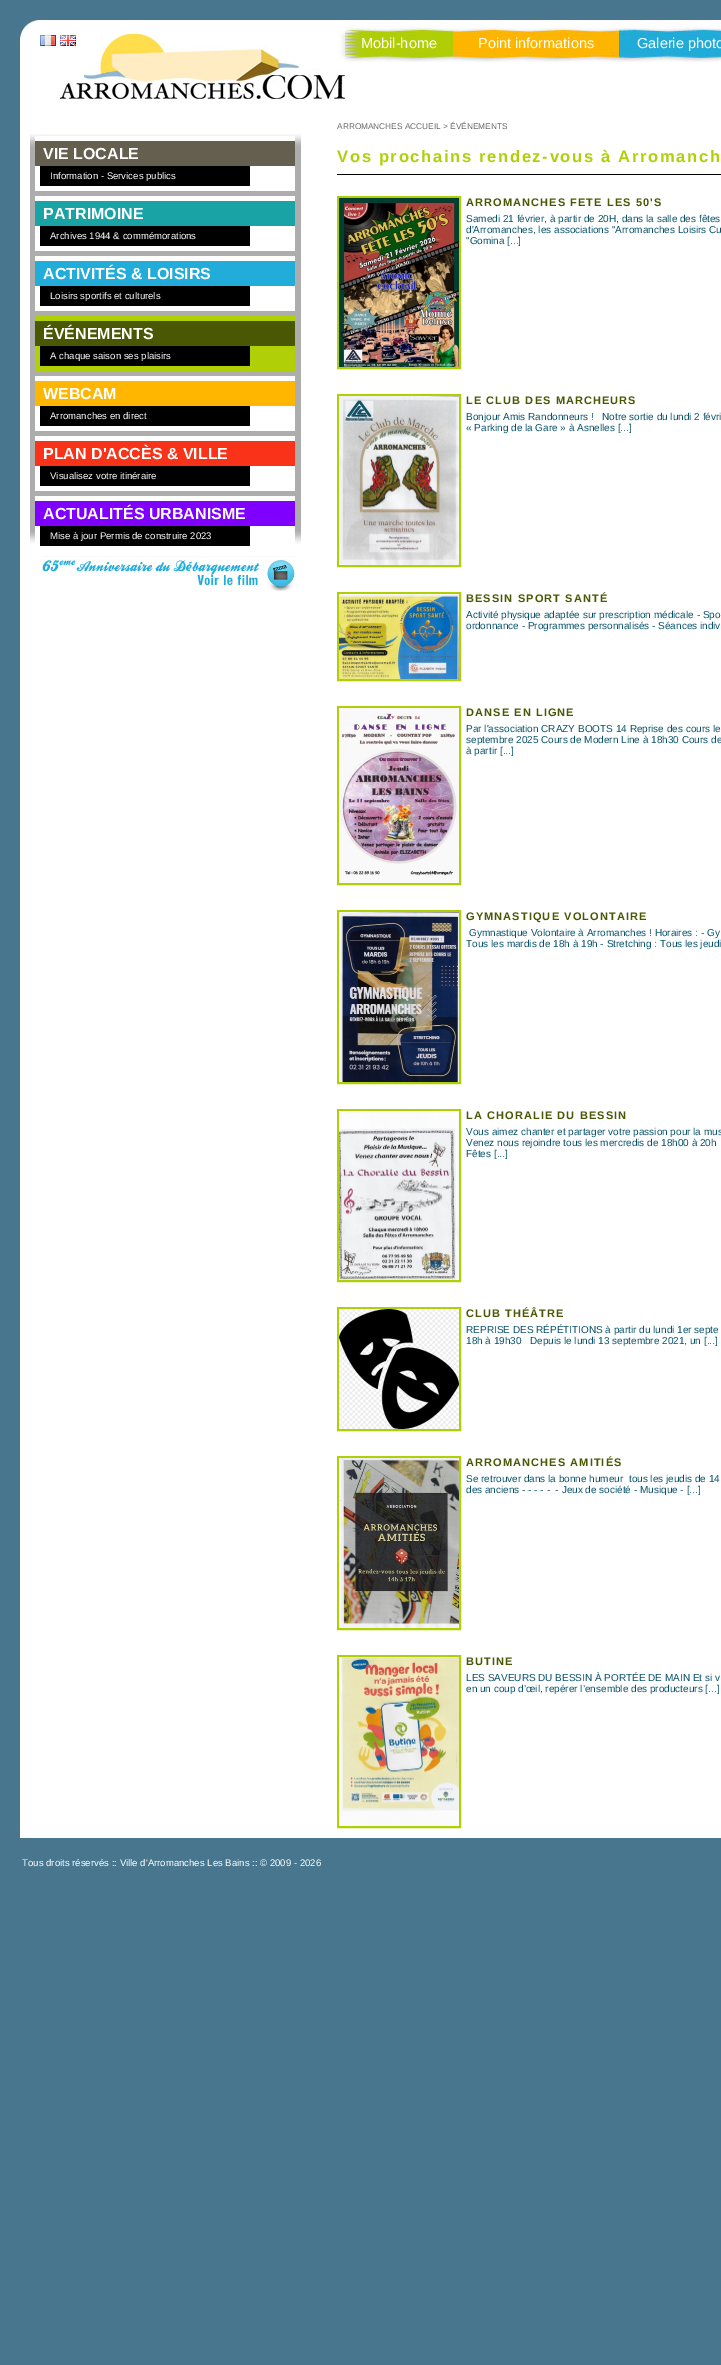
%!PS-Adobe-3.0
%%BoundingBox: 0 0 721 2365
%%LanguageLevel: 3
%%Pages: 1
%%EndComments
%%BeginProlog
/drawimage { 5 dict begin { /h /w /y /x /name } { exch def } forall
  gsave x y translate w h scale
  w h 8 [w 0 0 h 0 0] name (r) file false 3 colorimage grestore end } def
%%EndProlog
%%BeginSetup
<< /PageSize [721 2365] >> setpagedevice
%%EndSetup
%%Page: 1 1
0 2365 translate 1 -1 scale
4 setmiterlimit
0.278 0.463 0.557 setrgbcolor
0 0 721 2365 rectfill
(images/1.raw) 20 20 325 96 drawimage
(images/2.raw) 40 35 16 11 drawimage
(images/3.raw) 60 35 16 11 drawimage
1 setgray
345 62 376 54 rectfill
(images/4.raw) 345 20 376 42 drawimage
20 116 701 1722 rectfill
(images/5.raw) 30 134 271 410 drawimage
35 136 260 55 rectfill
0.396 0.373 0.31 setrgbcolor
35 141 260 25 rectfill
0 setgray
40 166 210 20 rectfill
1 setgray
35 196 260 55 rectfill
0.102 0.639 0.647 setrgbcolor
35 201 260 25 rectfill
0 setgray
40 226 210 20 rectfill
1 setgray
35 256 260 55 rectfill
0.133 0.675 0.851 setrgbcolor
35 261 260 25 rectfill
0 setgray
40 286 210 20 rectfill
0.69 0.812 0.027 setrgbcolor
35 316 260 55 rectfill
0.29 0.341 0.012 setrgbcolor
35 321 260 25 rectfill
0 setgray
40 346 210 20 rectfill
1 setgray
35 376 260 55 rectfill
1 0.714 0 setrgbcolor
35 381 260 25 rectfill
0 setgray
40 406 210 20 rectfill
1 setgray
35 436 260 55 rectfill
0.976 0.2 0.102 setrgbcolor
35 441 260 25 rectfill
0 setgray
40 466 210 20 rectfill
1 setgray
35 496 260 48 rectfill
0.498 0 1 setrgbcolor
35 501 260 25 rectfill
0 setgray
40 526 210 20 rectfill
(images/6.raw) 42 556 253 35 drawimage
337 174 384 1 rectfill
0.69 0.812 0.027 setrgbcolor
2 setlinewidth
338 197 122 171 rectstroke
(images/7.raw) 339 198 120 169 drawimage
338 395 122 171 rectstroke
(images/8.raw) 339 396 120 169 drawimage
338 593 122 87 rectstroke
(images/9.raw) 339 594 120 85 drawimage
338 707 122 177 rectstroke
(images/10.raw) 339 708 120 175 drawimage
338 911 122 172 rectstroke
(images/11.raw) 339 912 120 170 drawimage
338 1110 122 171 rectstroke
(images/12.raw) 339 1111 120 169 drawimage
338 1308 122 122 rectstroke
(images/13.raw) 339 1309 120 120 drawimage
338 1457 122 172 rectstroke
(images/14.raw) 339 1458 120 170 drawimage
338 1656 122 171 rectstroke
(images/15.raw) 339 1657 120 169 drawimage
/LiberationSans-Regular [14.5 0 0 -14.5 0 0] selectfont
1 setgray
361 48 moveto (Mobil-home) show
478 48 moveto (Point informations) show
637 48 moveto (Galerie photo) show
/LiberationSans-Bold [16 0 0 -16 0 0] selectfont
43 159 moveto (VIE LOCALE) show
/LiberationSans-Regular [9.6 0 0 -9.6 0 0] selectfont
50 179 moveto (Information - Services publics) show
/LiberationSans-Bold [16 0 0 -16 0 0] selectfont
43 219 moveto (PATRIMOINE) show
/LiberationSans-Regular [9.6 0 0 -9.6 0 0] selectfont
50 239 moveto (Archives 1944 & commémorations) show
/LiberationSans-Bold [16 0 0 -16 0 0] selectfont
43 279 moveto (ACTIVITÉS & LOISIRS) show
/LiberationSans-Regular [9.6 0 0 -9.6 0 0] selectfont
50 299 moveto (Loisirs sportifs et culturels) show
/LiberationSans-Bold [16 0 0 -16 0 0] selectfont
43 339 moveto (ÉVÉNEMENTS) show
/LiberationSans-Regular [9.6 0 0 -9.6 0 0] selectfont
50 359 moveto (A chaque saison ses plaisirs) show
/LiberationSans-Bold [16 0 0 -16 0 0] selectfont
43 399 moveto (WEBCAM) show
/LiberationSans-Regular [9.6 0 0 -9.6 0 0] selectfont
50 419 moveto (Arromanches en direct) show
/LiberationSans-Bold [16 0 0 -16 0 0] selectfont
43 459 moveto (PLAN D'ACCÈS & VILLE) show
/LiberationSans-Regular [9.6 0 0 -9.6 0 0] selectfont
50 479 moveto (Visualisez votre itinéraire) show
/LiberationSans-Bold [16 0 0 -16 0 0] selectfont
43 519 moveto (ACTUALITÉS URBANISME) show
/LiberationSans-Regular [9.6 0 0 -9.6 0 0] selectfont
50 539 moveto (Mise à jour Permis de construire 2023) show
/LiberationSans-Regular [8.3 0 0 -8.3 0 0] selectfont
0.412 setgray
337 129 moveto (ARROMANCHES ACCUEIL > ÉVÉNEMENTS) show
/LiberationSans-Bold [16.6 0 0 -16.6 0 0] selectfont
0.69 0.812 0.027 setrgbcolor
337 162 moveto 1.65 0 (Vos prochains rendez-vous à Arromanch) ashow
/LiberationSans-Bold [11 0 0 -11 0 0] selectfont
0.29 0.341 0.012 setrgbcolor
466 206 moveto 1.1 0 (ARROMANCHES FETE LES 50'S) ashow
/LiberationSans-Regular [10 0 0 -10 0 0] selectfont
0.027 0.322 0.42 setrgbcolor
466 222 moveto (Samedi 21 février, à partir de 20H, dans la salle des fêtes) show
466 233 moveto (d'Arromanches, les associations "Arromanches Loisirs Cu) show
466 244 moveto ("Gomina [...]) show
/LiberationSans-Bold [11 0 0 -11 0 0] selectfont
0.29 0.341 0.012 setrgbcolor
466 404 moveto 1.1 0 (LE CLUB DES MARCHEURS) ashow
/LiberationSans-Regular [10 0 0 -10 0 0] selectfont
0.027 0.322 0.42 setrgbcolor
466 420 moveto (Bonjour Amis Randonneurs !   Notre sortie du lundi 2 févri) show
466 431 moveto (« Parking de la Gare » à Asnelles [...]) show
/LiberationSans-Bold [11 0 0 -11 0 0] selectfont
0.29 0.341 0.012 setrgbcolor
466 602 moveto 1.1 0 (BESSIN SPORT SANTÉ) ashow
/LiberationSans-Regular [10 0 0 -10 0 0] selectfont
0.027 0.322 0.42 setrgbcolor
466 618 moveto (Activité physique adaptée sur prescription médicale - Spo) show
466 629 moveto (ordonnance - Programmes personnalisés - Séances indiv) show
/LiberationSans-Bold [11 0 0 -11 0 0] selectfont
0.29 0.341 0.012 setrgbcolor
466 716 moveto 1.1 0 (DANSE EN LIGNE) ashow
/LiberationSans-Regular [10 0 0 -10 0 0] selectfont
0.027 0.322 0.42 setrgbcolor
466 732 moveto (Par l'association CRAZY BOOTS 14 Reprise des cours le) show
466 743 moveto (septembre 2025 Cours de Modern Line à 18h30 Cours de) show
466 754 moveto (à partir [...]) show
/LiberationSans-Bold [11 0 0 -11 0 0] selectfont
0.29 0.341 0.012 setrgbcolor
466 920 moveto 1.1 0 (GYMNASTIQUE VOLONTAIRE) ashow
/LiberationSans-Regular [10 0 0 -10 0 0] selectfont
0.027 0.322 0.42 setrgbcolor
469 936 moveto (Gymnastique Volontaire à Arromanches ! Horaires : - Gy) show
466 947 moveto (Tous les mardis de 18h à 19h - Stretching : Tous les jeudi) show
/LiberationSans-Bold [11 0 0 -11 0 0] selectfont
0.29 0.341 0.012 setrgbcolor
466 1119 moveto 1.1 0 (LA CHORALIE DU BESSIN) ashow
/LiberationSans-Regular [10 0 0 -10 0 0] selectfont
0.027 0.322 0.42 setrgbcolor
466 1135 moveto (Vous aimez chanter et partager votre passion pour la mus) show
466 1146 moveto (Venez nous rejoindre tous les mercredis de 18h00 à 20h) show
466 1157 moveto (Fêtes [...]) show
/LiberationSans-Bold [11 0 0 -11 0 0] selectfont
0.29 0.341 0.012 setrgbcolor
466 1317 moveto 1.1 0 (CLUB THÉÂTRE) ashow
/LiberationSans-Regular [10 0 0 -10 0 0] selectfont
0.027 0.322 0.42 setrgbcolor
466 1333 moveto (REPRISE DES RÉPÉTITIONS à partir du lundi 1er septe) show
466 1344 moveto (18h à 19h30   Depuis le lundi 13 septembre 2021, un [...]) show
/LiberationSans-Bold [11 0 0 -11 0 0] selectfont
0.29 0.341 0.012 setrgbcolor
466 1466 moveto 1.1 0 (ARROMANCHES AMITIÉS) ashow
/LiberationSans-Regular [10 0 0 -10 0 0] selectfont
0.027 0.322 0.42 setrgbcolor
466 1482 moveto (Se retrouver dans la bonne humeur  tous les jeudis de 14) show
466 1493 moveto (des anciens - - - - -  - Jeux de société - Musique - [...]) show
/LiberationSans-Bold [11 0 0 -11 0 0] selectfont
0.29 0.341 0.012 setrgbcolor
466 1665 moveto 1.1 0 (BUTINE) ashow
/LiberationSans-Regular [10 0 0 -10 0 0] selectfont
0.027 0.322 0.42 setrgbcolor
466 1681 moveto (LES SAVEURS DU BESSIN À PORTÉE DE MAIN Et si v) show
466 1692 moveto (en un coup d’œil, repérer l’ensemble des producteurs [...]) show
/LiberationSans-Regular [9.6 0 0 -9.6 0 0] selectfont
1 setgray
22 1866 moveto (Tous droits réservés :: Ville d'Arromanches Les Bains :: © 2009 - 2026) show
showpage
%%EOF
